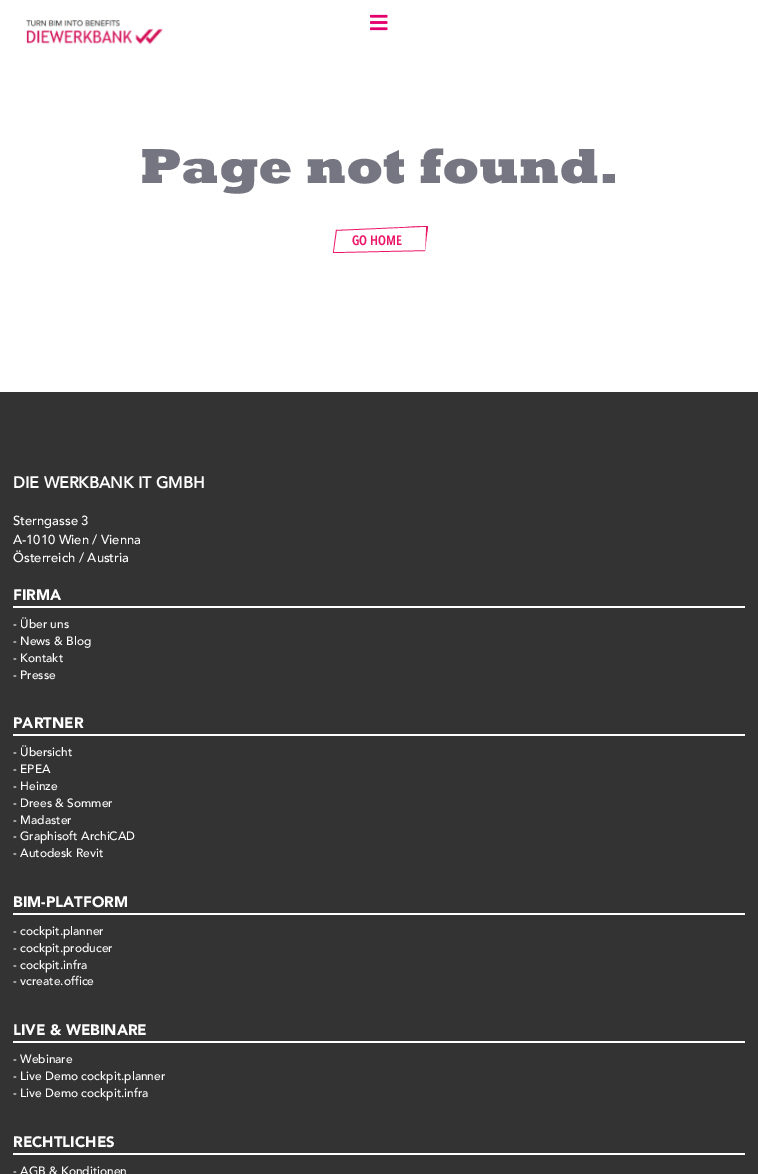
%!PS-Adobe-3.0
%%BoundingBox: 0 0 758 1174
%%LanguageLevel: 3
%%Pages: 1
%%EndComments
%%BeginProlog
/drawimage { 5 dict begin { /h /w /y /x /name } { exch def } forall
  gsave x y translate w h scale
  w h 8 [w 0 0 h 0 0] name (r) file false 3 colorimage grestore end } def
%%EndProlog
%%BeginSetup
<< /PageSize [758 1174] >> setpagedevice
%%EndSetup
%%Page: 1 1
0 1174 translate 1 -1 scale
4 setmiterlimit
1 setgray
0 0 758 1174 rectfill
(images/1.raw) 26 20 137 25 drawimage
(images/2.raw) 370 14 18 17 drawimage
0.929 0.09 0.412 setrgbcolor
newpath 333 253 moveto 336 230 lineto 428 226 lineto 425 251 lineto closepath fill
newpath 333 253 moveto 342 253 lineto closepath 427 232 moveto 428 226 lineto 408 227 lineto 427 227 lineto closepath eofill
1 setgray
newpath 334 252 moveto 337 231 lineto 426 227 lineto 425 250 lineto closepath fill
0.2 setgray
0 392 758 782 rectfill
1 setgray
13 606 732 2 rectfill
13 734 732 2 rectfill
13 913 732 2 rectfill
13 1041 732 2 rectfill
13 1153 732 2 rectfill
/Rockwell-ExtraBold [50 0 0 -50 0 0] selectfont
0.463 0.459 0.51 setrgbcolor
140 183 moveto (Page not found.) show
/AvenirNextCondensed-SemiBold [13.5 0 0 -13.5 0 0] selectfont
0.929 0.09 0.412 setrgbcolor
352 245 moveto (GO HOME) show
/Avenir-Bold [16 0 0 -16 0 0] selectfont
1 setgray
13 488 moveto (DIE WERKBANK IT GMBH) show
/Avenir-Medium [13 0 0 -13 0 0] selectfont
13 525 moveto (Sterngasse 3) show
13 544 moveto (A-1010 Wien / Vienna) show
13 562 moveto (Österreich / Austria) show
/Avenir-Black [15 0 0 -15 0 0] selectfont
13 600 moveto (FIRMA) show
/Avenir-Medium [12 0 0 -12 0 0] selectfont
13 628 moveto (- Über uns) show
13 645 moveto (- News & Blog) show
13 662 moveto (- Kontakt) show
13 679 moveto (- Presse) show
/Avenir-Black [15 0 0 -15 0 0] selectfont
13 728 moveto (PARTNER) show
/Avenir-Medium [12 0 0 -12 0 0] selectfont
13 756 moveto (- Übersicht) show
13 773 moveto (- EPEA) show
13 790 moveto (- Heinze) show
13 807 moveto (- Drees & Sommer) show
13 824 moveto (- Madaster) show
13 840 moveto (- Graphisoft ArchiCAD) show
13 857 moveto (- Autodesk Revit) show
/Avenir-Black [15 0 0 -15 0 0] selectfont
13 907 moveto (BIM-PLATFORM) show
/Avenir-Medium [12 0 0 -12 0 0] selectfont
13 935 moveto (- cockpit.planner) show
13 952 moveto (- cockpit.producer) show
13 969 moveto (- cockpit.infra) show
13 985 moveto (- vcreate.office) show
/Avenir-Black [15 0 0 -15 0 0] selectfont
13 1035 moveto (LIVE & WEBINARE) show
/Avenir-Medium [12 0 0 -12 0 0] selectfont
13 1063 moveto (- Webinare) show
13 1080 moveto (- Live Demo cockpit.planner) show
13 1097 moveto (- Live Demo cockpit.infra) show
/Avenir-Black [15 0 0 -15 0 0] selectfont
13 1147 moveto (RECHTLICHES) show
/Avenir-Medium [12 0 0 -12 0 0] selectfont
13 1175 moveto (- AGB & Konditionen) show
showpage
%%EOF
